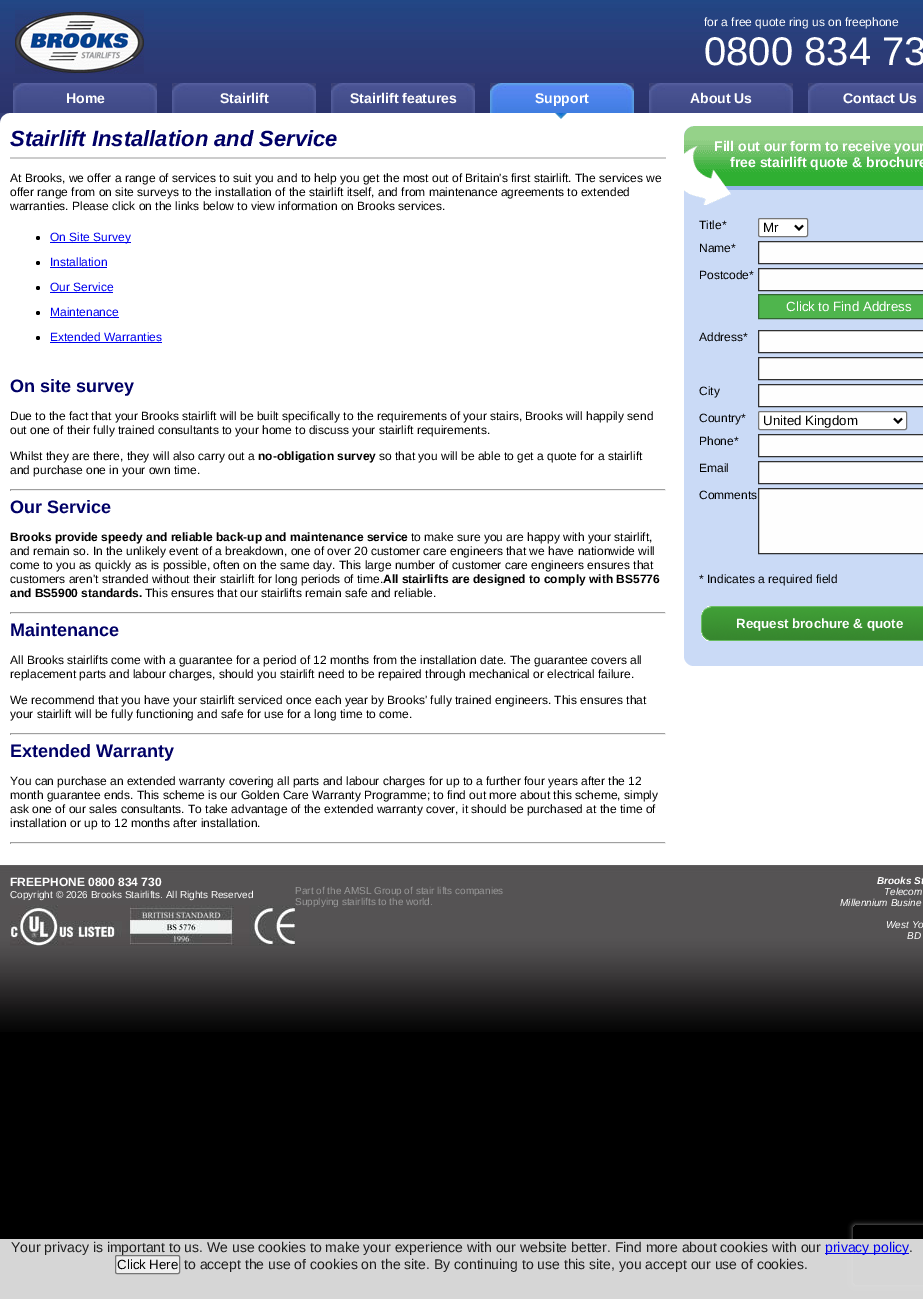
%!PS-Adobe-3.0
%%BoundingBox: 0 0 923 1299
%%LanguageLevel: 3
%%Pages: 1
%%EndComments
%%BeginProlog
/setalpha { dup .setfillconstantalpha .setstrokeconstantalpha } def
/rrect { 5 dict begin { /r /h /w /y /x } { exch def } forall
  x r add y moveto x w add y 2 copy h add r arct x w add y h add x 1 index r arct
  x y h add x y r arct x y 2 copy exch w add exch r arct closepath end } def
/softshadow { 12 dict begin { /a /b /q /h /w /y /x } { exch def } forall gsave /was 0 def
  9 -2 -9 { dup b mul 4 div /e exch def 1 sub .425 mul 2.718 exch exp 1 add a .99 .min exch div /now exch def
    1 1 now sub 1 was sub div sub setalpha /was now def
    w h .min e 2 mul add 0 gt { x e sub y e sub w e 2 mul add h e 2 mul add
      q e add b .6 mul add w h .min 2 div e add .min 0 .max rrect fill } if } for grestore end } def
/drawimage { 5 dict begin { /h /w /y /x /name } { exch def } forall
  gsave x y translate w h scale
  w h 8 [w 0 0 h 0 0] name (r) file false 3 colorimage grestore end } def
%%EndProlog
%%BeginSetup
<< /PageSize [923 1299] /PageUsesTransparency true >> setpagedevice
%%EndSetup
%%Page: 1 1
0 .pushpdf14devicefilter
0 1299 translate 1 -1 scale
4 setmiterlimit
0 setgray
0 0 923 1299 rectfill
(images/1.raw) 0 0 923 113 drawimage
(images/2.raw) 0 113 923 13 drawimage
(images/3.raw) 15 10 129 64 drawimage
(images/4.raw) 13 83 144 30 drawimage
(images/4.raw) 172 83 144 30 drawimage
(images/4.raw) 331 83 144 30 drawimage
(images/5.raw) 490 83 144 30 drawimage
(images/4.raw) 649 83 144 30 drawimage
(images/6.raw) 808 83 115 30 drawimage
(images/7.raw) 555 113 12 6 drawimage
1 setgray
0 126 923 739 rectfill
0.8 setgray
10 157 656 2 rectfill
0 setgray
newpath 38 238 2 0 360 arc closepath fill
0 0 0.933 setrgbcolor
50 242 81 1 rectfill
0 setgray
newpath 38 263 2 0 360 arc closepath fill
0 0 0.933 setrgbcolor
50 267 57 1 rectfill
0 setgray
newpath 38 288 2 0 360 arc closepath fill
0 0 0.933 setrgbcolor
50 292 63 1 rectfill
0 setgray
newpath 38 313 2 0 360 arc closepath fill
0 0 0.933 setrgbcolor
50 317 69 1 rectfill
0 setgray
newpath 38 338 2 0 360 arc closepath fill
0 0 0.933 setrgbcolor
50 342 112 1 rectfill
0.624 setgray
10 489 656 1 rectfill
0.933 setgray
665 489 1 2 rectfill
10 490 656 1 rectfill
0.624 setgray
10 489 1 2 rectfill
10 612 656 1 rectfill
0.933 setgray
665 612 1 2 rectfill
10 613 656 1 rectfill
0.624 setgray
10 612 1 2 rectfill
10 733 656 1 rectfill
0.933 setgray
665 733 1 2 rectfill
10 734 656 1 rectfill
0.624 setgray
10 733 1 2 rectfill
10 842 656 1 rectfill
0.933 setgray
665 842 1 2 rectfill
10 843 656 1 rectfill
0.624 setgray
10 842 1 2 rectfill
0.792 0.855 0.965 setrgbcolor
684 126 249 540 10 rrect fill
(images/8.raw) 684 126 239 79 drawimage
1 setgray
758.5 218.5 49 18 1.5 rrect gsave fill grestore
0.463 setgray
stroke
0 setgray
2 setlinewidth
newpath 795 225.5 moveto 799 229.5 lineto 803 225.5 lineto stroke
0.996 setgray
newpath 758.5 241.5 moveto 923.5 241.5 lineto 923.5 263.5 lineto 758.5 263.5 lineto closepath gsave fill grestore
0.188 setgray
1 setlinewidth
stroke
0.996 setgray
newpath 758.5 268.5 moveto 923.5 268.5 lineto 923.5 290.5 lineto 758.5 290.5 lineto closepath gsave fill grestore
0.188 setgray
stroke
0.31 0.71 0.302 setrgbcolor
newpath 758.5 294.5 moveto 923.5 294.5 lineto 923.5 318.5 lineto 758.5 318.5 lineto closepath gsave fill grestore
0.2 0.4 0.2 setrgbcolor
stroke
0.996 setgray
newpath 758.5 330.5 moveto 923.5 330.5 lineto 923.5 352.5 lineto 758.5 352.5 lineto closepath gsave fill grestore
0.188 setgray
stroke
0.996 setgray
newpath 758.5 357.5 moveto 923.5 357.5 lineto 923.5 379.5 lineto 758.5 379.5 lineto closepath gsave fill grestore
0.188 setgray
stroke
0.996 setgray
newpath 758.5 384.5 moveto 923.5 384.5 lineto 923.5 406.5 lineto 758.5 406.5 lineto closepath gsave fill grestore
0.188 setgray
stroke
1 setgray
758.5 411.5 148 18 1.5 rrect gsave fill grestore
0.463 setgray
stroke
0 setgray
2 setlinewidth
newpath 894 418.5 moveto 898 422.5 lineto 902 418.5 lineto stroke
0.996 setgray
newpath 758.5 434.5 moveto 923.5 434.5 lineto 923.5 456.5 lineto 758.5 456.5 lineto closepath gsave fill grestore
0.188 setgray
1 setlinewidth
stroke
0.996 setgray
newpath 758.5 461.5 moveto 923.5 461.5 lineto 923.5 483.5 lineto 758.5 483.5 lineto closepath gsave fill grestore
0.188 setgray
stroke
0.996 setgray
newpath 758.5 488.5 moveto 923.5 488.5 lineto 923.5 553.5 lineto 758.5 553.5 lineto closepath gsave fill grestore
0.188 setgray
stroke
(images/9.raw) 701 606 222 35 drawimage
(images/10.raw) 0 865 923 167 drawimage
(images/11.raw) 10 905 285 41 drawimage
gsave
newpath 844 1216 moveto 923 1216 lineto 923 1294 lineto 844 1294 lineto closepath 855 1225 moveto 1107 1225 lineto 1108 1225 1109 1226 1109 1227 curveto 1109 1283 lineto 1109 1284 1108 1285 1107 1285 curveto 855 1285 lineto 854 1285 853 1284 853 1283 curveto 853 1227 lineto 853 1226 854 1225 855 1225 curveto closepath eoclip newpath
0.502 setgray
853 1225 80 60 2 2.5 1 softshadow
grestore
0.95 setalpha
0.886 setgray
0 1239 923 60 rectfill
1 setalpha
0 0 0.933 setrgbcolor
825 1253 84 1 rectfill
0.937 setgray
115.5 1255.5 64 18 1.5 rrect gsave fill grestore
0.463 setgray
stroke
/LiberationSans-Regular [12 0 0 -12 0 0] selectfont
1 setgray
704 26 moveto (for a free quote ring us on freephone) show
/LiberationSans-Regular [40 0 0 -40 0 0] selectfont
704 65 moveto (0800 834 73) show
/LiberationSans-Bold [14 0 0 -14 0 0] selectfont
66 103 moveto (Home) show
220 103 moveto (Stairlift) show
350 103 moveto (Stairlift features) show
535 103 moveto (Support) show
690 103 moveto (About Us) show
843 103 moveto (Contact Us) show
/LiberationSans-BoldItalic [22 0 0 -22 0 0] selectfont
0 0 0.4 setrgbcolor
10 146 moveto (Stairlift Installation and Service) show
/LiberationSans-Regular [12 0 0 -12 0 0] selectfont
0 setgray
10 182 moveto (At Brooks, we offer a range of services to suit you and to help you get the most out of Britain's first stairlift. The services we) show
10 196 moveto (offer range from on site surveys to the installation of the stairlift itself, and from maintenance agreements to extended) show
10 210 moveto (warranties. Please click on the links below to view information on Brooks services.) show
0 0 0.933 setrgbcolor
50 241 moveto (On Site Survey) show
50 266 moveto (Installation) show
50 291 moveto (Our Service) show
50 316 moveto (Maintenance) show
50 341 moveto (Extended Warranties) show
/LiberationSans-Bold [18 0 0 -18 0 0] selectfont
0 0 0.4 setrgbcolor
10 392 moveto (On site survey) show
/LiberationSans-Regular [12 0 0 -12 0 0] selectfont
0 setgray
10 420 moveto (Due to the fact that your Brooks stairlift will be built specifically to the requirements of your stairs, Brooks will happily send) show
10 434 moveto (out one of their fully trained consultants to your home to discuss your stairlift requirements.) show
10 460 moveto (Whilst they are there, they will also carry out a) show
/LiberationSans-Bold [12 0 0 -12 0 0] selectfont
258 460 moveto (no-obligation survey) show
/LiberationSans-Regular [12 0 0 -12 0 0] selectfont
379 460 moveto (so that you will be able to get a quote for a stairlift) show
10 474 moveto (and purchase one in your own time.) show
/LiberationSans-Bold [18 0 0 -18 0 0] selectfont
0 0 0.4 setrgbcolor
10 513 moveto (Our Service) show
/LiberationSans-Bold [12 0 0 -12 0 0] selectfont
0 setgray
10 541 moveto (Brooks provide speedy and reliable back-up and maintenance service) show
/LiberationSans-Regular [12 0 0 -12 0 0] selectfont
411 541 moveto (to make sure you are happy with your stairlift,) show
10 555 moveto (and remain so. In the unlikely event of a breakdown, one of over 20 customer care engineers that we have nationwide will) show
10 569 moveto (come to you as quickly as is possible, often on the same day. This large number of customer care engineers ensures that) show
10 583 moveto (customers aren't stranded without their stairlift for long periods of time.) show
/LiberationSans-Bold [12 0 0 -12 0 0] selectfont
383 583 moveto (All stairlifts are designed to comply with BS5776) show
10 597 moveto (and BS5900 standards.) show
/LiberationSans-Regular [12 0 0 -12 0 0] selectfont
145 597 moveto (This ensures that our stairlifts remain safe and reliable.) show
/LiberationSans-Bold [18 0 0 -18 0 0] selectfont
0 0 0.4 setrgbcolor
10 636 moveto (Maintenance) show
/LiberationSans-Regular [12 0 0 -12 0 0] selectfont
0 setgray
10 664 moveto (All Brooks stairlifts come with a guarantee for a period of 12 months from the installation date. The guarantee covers all) show
10 678 moveto (replacement parts and labour charges, should you stairlift need to be repaired through mechanical or electrical failure.) show
10 704 moveto (We recommend that you have your stairlift serviced once each year by Brooks' fully trained engineers. This ensures that) show
10 718 moveto (your stairlift will be fully functioning and safe for use for a long time to come.) show
/LiberationSans-Bold [18 0 0 -18 0 0] selectfont
0 0 0.4 setrgbcolor
10 757 moveto (Extended Warranty) show
/LiberationSans-Regular [12 0 0 -12 0 0] selectfont
0 setgray
10 785 moveto (You can purchase an extended warranty covering all parts and labour charges for up to a further four years after the 12) show
10 799 moveto (month guarantee ends. This scheme is our Golden Care Warranty Programme; to find out more about this scheme, simply) show
10 813 moveto (ask one of our sales consultants. To take advantage of the extended warranty cover, it should be purchased at the time of) show
10 827 moveto (installation or up to 12 months after installation.) show
/LiberationSans-Bold [14 0 0 -14 0 0] selectfont
1 setgray
714 151 moveto (Fill out our form to receive your) show
730 167 moveto (free stairlift quote & brochure) show
/LiberationSans-Regular [12 0 0 -12 0 0] selectfont
0 setgray
699 229 moveto (Title*) show
/LiberationSans-Regular [13.3 0 0 -13.3 0 0] selectfont
763 232 moveto (Mr) show
/LiberationSans-Regular [12 0 0 -12 0 0] selectfont
699 252 moveto (Name*) show
699 279 moveto (Postcode*) show
/LiberationSans-Regular [13.3 0 0 -13.3 0 0] selectfont
1 setgray
786 311 moveto (Click to Find Address) show
/LiberationSans-Regular [12 0 0 -12 0 0] selectfont
0 setgray
699 341 moveto (Address*) show
699 395 moveto (City) show
699 422 moveto (Country*) show
/LiberationSans-Regular [13.3 0 0 -13.3 0 0] selectfont
763 425 moveto (United Kingdom) show
/LiberationSans-Regular [12 0 0 -12 0 0] selectfont
699 445 moveto (Phone*) show
699 472 moveto (Email) show
699 499 moveto (Comments) show
699 583 moveto (* Indicates a required field) show
/LiberationSans-Bold [13.3 0 0 -13.3 0 0] selectfont
1 setgray
736 628 moveto (Request brochure & quote) show
/LiberationSans-Bold [12 0 0 -12 0 0] selectfont
10 886 moveto (FREEPHONE 0800 834 730) show
/LiberationSans-Regular [10 0 0 -10 0 0] selectfont
10 898 moveto (Copyright © 2026 Brooks Stairlifts. All Rights Reserved) show
0.6 setgray
295 894 moveto (Part of the AMSL Group of stair lifts companies) show
295 905 moveto (Supplying stairlifts to the world.) show
/LiberationSans-BoldItalic [10 0 0 -10 0 0] selectfont
1 setgray
877 884 moveto (Brooks St) show
/LiberationSans-Italic [10 0 0 -10 0 0] selectfont
884 895 moveto (Telecom) show
840 906 moveto (Millennium Busine) show
886 928 moveto (West Yo) show
907 939 moveto (BD) show
/LiberationSans-Regular [14 0 0 -14 0 0] selectfont
0.114 setgray
11 1252 moveto (Your privacy is important to us. We use cookies to make your experience with our website better. Find more about cookies with our) show
0 0 0.933 setrgbcolor
825 1252 moveto (privacy policy) show
0.114 setgray
909 1252 moveto (.) show
/LiberationSans-Regular [13.3 0 0 -13.3 0 0] selectfont
0 setgray
117 1269 moveto (Click Here) show
/LiberationSans-Regular [14 0 0 -14 0 0] selectfont
0.114 setgray
184 1269 moveto (to accept the use of cookies on the site. By continuing to use this site, you accept our use of cookies.) show
.poppdf14devicefilter showpage
%%EOF
